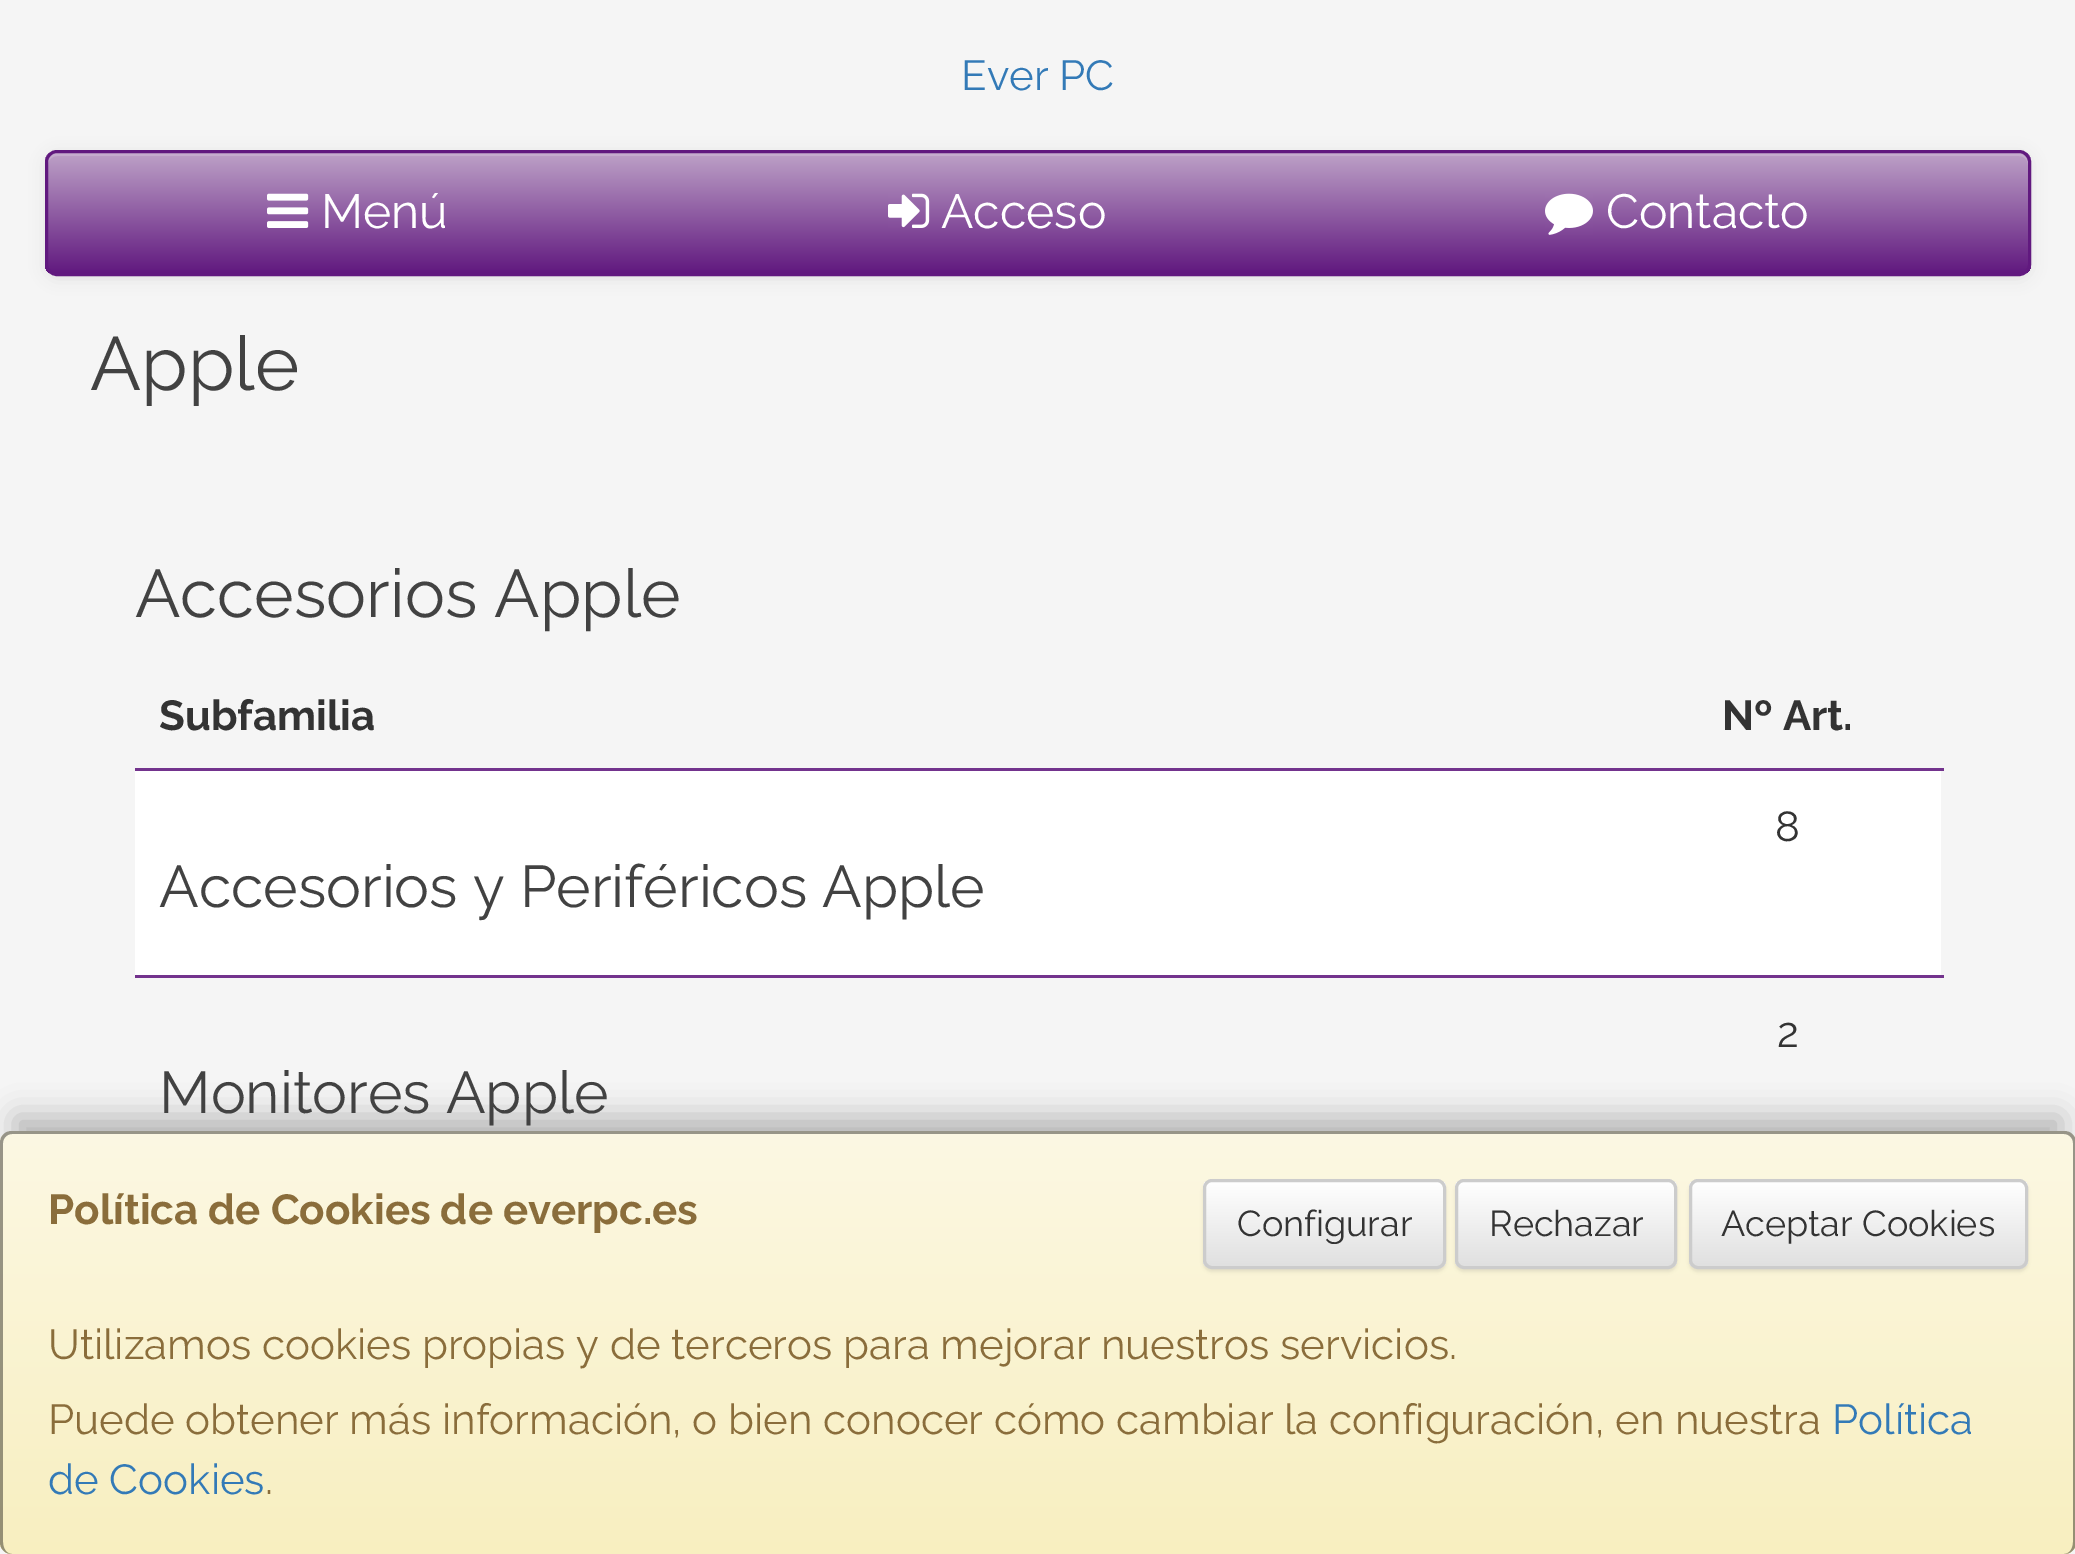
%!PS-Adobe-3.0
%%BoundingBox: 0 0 2075 1554
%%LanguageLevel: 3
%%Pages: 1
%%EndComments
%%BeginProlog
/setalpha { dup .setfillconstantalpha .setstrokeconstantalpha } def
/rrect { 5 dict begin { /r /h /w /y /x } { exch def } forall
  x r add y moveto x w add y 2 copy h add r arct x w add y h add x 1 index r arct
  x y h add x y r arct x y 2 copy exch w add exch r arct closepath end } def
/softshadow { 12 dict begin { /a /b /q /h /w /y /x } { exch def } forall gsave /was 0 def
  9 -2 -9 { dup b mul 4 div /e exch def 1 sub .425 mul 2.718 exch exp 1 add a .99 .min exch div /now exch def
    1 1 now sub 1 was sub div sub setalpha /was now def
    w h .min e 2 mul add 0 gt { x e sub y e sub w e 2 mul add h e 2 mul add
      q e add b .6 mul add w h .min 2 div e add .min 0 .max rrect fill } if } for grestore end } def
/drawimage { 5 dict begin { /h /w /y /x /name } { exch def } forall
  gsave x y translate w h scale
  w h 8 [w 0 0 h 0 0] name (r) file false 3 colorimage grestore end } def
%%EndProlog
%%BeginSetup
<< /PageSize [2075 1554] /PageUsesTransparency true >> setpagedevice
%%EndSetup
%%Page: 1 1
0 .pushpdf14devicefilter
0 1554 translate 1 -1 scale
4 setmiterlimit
0.961 setgray
0 0 2075 1554 rectfill
0 setgray
45 153 1986 126 12 7.5 0.07 softshadow
gsave
45 150 1986 126 12 rrect clip newpath
gsave newpath 45 153 moveto 2031 153 lineto 2031 273 lineto 45 273 lineto closepath clip newpath
<< /ShadingType 2 /ColorSpace /DeviceRGB /Coords [1038 153 1038 273] /Extend [true true] /Function << /FunctionType 2 /Domain [0 1] /C0 [0.741 0.631 0.78] /C1 [0.38 0.098 0.498] /N 1 >> >> shfill grestore
grestore
0.15 setalpha
1 setgray
newpath 57 156 moveto 2019 156 lineto 2024 156 2028 160 2028 165 curveto 2028 162 lineto 2028 157 2024 153 2019 153 curveto 57 153 lineto 52 153 48 157 48 162 curveto 48 165 lineto 48 160 52 156 57 156 curveto closepath fill
1 setalpha
0.38 0.098 0.498 setrgbcolor
3 setlinewidth
46.5 151.5 1983 123 10.5 rrect stroke
(images/1.raw) 267 193 42 35 drawimage
(images/2.raw) 888 193 42 35 drawimage
(images/3.raw) 1545 193 48 42 drawimage
0.451 0.2 0.553 setrgbcolor
135 768 1809 3 rectfill
1 setgray
135 771 1806 204 rectfill
0.451 0.2 0.553 setrgbcolor
135 975 1809 3 rectfill
0 setgray
15 1116 2046 393 0 15 0.25 softshadow
0.988 0.973 0.89 setrgbcolor
0 1131 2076 423 12 rrect fill
gsave
0 1131 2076 423 12 rrect clip newpath
gsave newpath 0 1134 moveto 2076 1134 lineto 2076 1542 lineto 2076 1548.5 2070.5 1554 2064 1554 curveto 12 1554 lineto 5.5 1554 0 1548.5 0 1542 curveto closepath clip newpath
<< /ShadingType 2 /ColorSpace /DeviceRGB /Coords [1038 1134 1038 1554] /Extend [true true] /Function << /FunctionType 2 /Domain [0 1] /C0 [0.988 0.973 0.89] /C1 [0.973 0.937 0.753] /N 1 >> >> shfill grestore
grestore
0.4 setalpha
0 setgray
newpath 12 1131 moveto 2064 1131 lineto 2071 1131 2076 1136 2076 1143 curveto 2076 1542 lineto 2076 1549 2071 1554 2064 1554 curveto 12 1554 lineto 5 1554 0 1549 0 1542 curveto 0 1143 lineto 0 1136 5 1131 12 1131 curveto closepath 12 1134 moveto 2064 1134 lineto 2069 1134 2073 1138 2073 1143 curveto 2073 1542 lineto 2073 1549 2069 1554 2064 1554 curveto 12 1554 lineto 7 1554 3 1549 3 1542 curveto 3 1143 lineto 3 1138 7 1134 12 1134 curveto closepath eofill
1 setalpha
1203 1182 243 90 9 1.5 0.07 softshadow
gsave
1203 1179 243 90 9 rrect clip newpath
gsave newpath 1203 1182 moveto 1446 1182 lineto 1446 1266 lineto 1203 1266 lineto closepath clip newpath
<< /ShadingType 2 /ColorSpace /DeviceRGB /Coords [1325 1182 1325 1266] /Extend [true true] /Function << /FunctionType 2 /Domain [0 1] /C0 [1 1 1] /C1 [0.878 0.878 0.878] /N 1 >> >> shfill grestore
grestore
0.8 setgray
1204.5 1180.5 240 87 7.5 rrect stroke
0 setgray
1455 1182 222 90 9 1.5 0.07 softshadow
gsave
1455 1179 222 90 9 rrect clip newpath
gsave newpath 1455 1182 moveto 1677 1182 lineto 1677 1266 lineto 1455 1266 lineto closepath clip newpath
<< /ShadingType 2 /ColorSpace /DeviceRGB /Coords [1566 1182 1566 1266] /Extend [true true] /Function << /FunctionType 2 /Domain [0 1] /C0 [1 1 1] /C1 [0.878 0.878 0.878] /N 1 >> >> shfill grestore
grestore
0.8 setgray
1456.5 1180.5 219 87 7.5 rrect stroke
0 setgray
1689 1182 339 90 9 1.5 0.07 softshadow
gsave
1689 1179 339 90 9 rrect clip newpath
gsave newpath 1689 1182 moveto 2028 1182 lineto 2028 1266 lineto 1689 1266 lineto closepath clip newpath
<< /ShadingType 2 /ColorSpace /DeviceRGB /Coords [1859 1182 1859 1266] /Extend [true true] /Function << /FunctionType 2 /Domain [0 1] /C0 [1 1 1] /C1 [0.878 0.878 0.878] /N 1 >> >> shfill grestore
grestore
0.8 setgray
1690.5 1180.5 336 87 7.5 rrect stroke
/Raleway-Regular [42 0 0 -42 0 0] selectfont
0.2 0.478 0.718 setrgbcolor
961 90 moveto (Ever PC) show
/Raleway-Regular [48 0 0 -48 0 0] selectfont
1 setgray
321 228 moveto (Menú) show
941 228 moveto (Acceso) show
1606 228 moveto (Contacto) show
/Raleway-Regular [75.5 0 0 -75.5 0 0] selectfont
0.259 setgray
90 390 moveto (Apple) show
/Raleway-Regular [67.25 0 0 -67.25 0 0] selectfont
135 617 moveto (Accesorios Apple) show
/Raleway-Bold [42 0 0 -42 0 0] selectfont
0.2 setgray
159 730 moveto (Subfamilia) show
1722 730 moveto (Nº Art.) show
/Raleway-Regular [42 0 0 -42 0 0] selectfont
1775 841 moveto (8) show
/Raleway-Regular [58.75 0 0 -58.75 0 0] selectfont
0.259 setgray
159 907 moveto (Accesorios y Periféricos Apple) show
/Raleway-Regular [42 0 0 -42 0 0] selectfont
0.2 setgray
1777 1047 moveto (2) show
/Raleway-Regular [58.75 0 0 -58.75 0 0] selectfont
0.259 setgray
159 1113 moveto (Monitores Apple) show
/Raleway-Bold [42 0 0 -42 0 0] selectfont
0.541 0.427 0.231 setrgbcolor
48 1224 moveto (Política de Cookies de everpc.es) show
/Raleway-Regular [36 0 0 -36 0 0] selectfont
0.2 setgray
1237 1236 moveto (Configurar) show
1489 1236 moveto (Rechazar) show
1721 1236 moveto (Aceptar Cookies) show
/Raleway-Regular [42 0 0 -42 0 0] selectfont
0.541 0.427 0.231 setrgbcolor
48 1359 moveto (Utilizamos cookies propias y de terceros para mejorar nuestros servicios.) show
48 1434 moveto (Puede obtener más información, o bien conocer cómo cambiar la configuración, en nuestra) show
0.2 0.478 0.718 setrgbcolor
1832 1434 moveto (Política) show
48 1494 moveto (de Cookies) show
0.541 0.427 0.231 setrgbcolor
265 1494 moveto (.) show
.poppdf14devicefilter showpage
%%EOF
